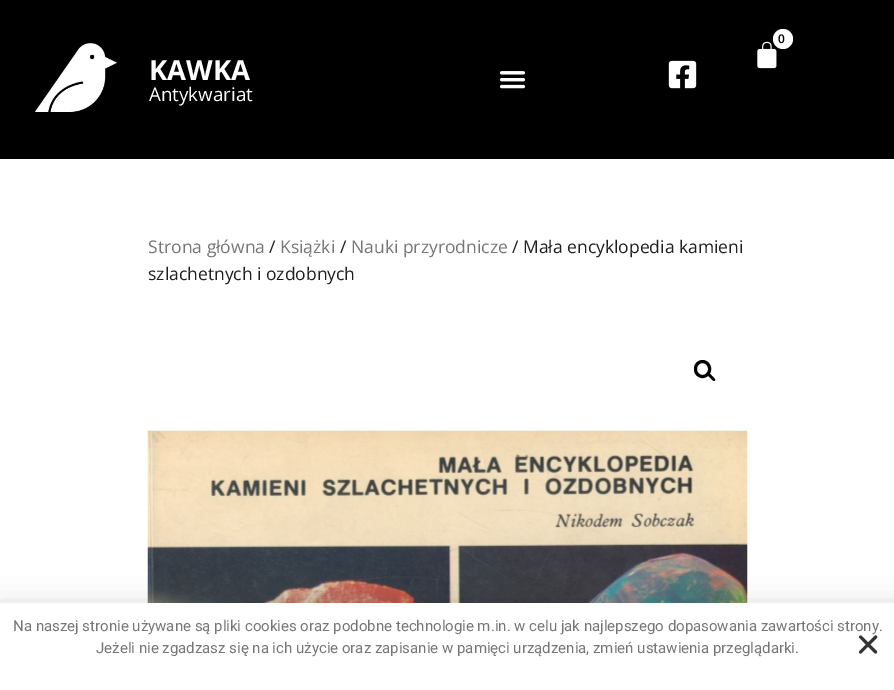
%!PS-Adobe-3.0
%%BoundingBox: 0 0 894 690
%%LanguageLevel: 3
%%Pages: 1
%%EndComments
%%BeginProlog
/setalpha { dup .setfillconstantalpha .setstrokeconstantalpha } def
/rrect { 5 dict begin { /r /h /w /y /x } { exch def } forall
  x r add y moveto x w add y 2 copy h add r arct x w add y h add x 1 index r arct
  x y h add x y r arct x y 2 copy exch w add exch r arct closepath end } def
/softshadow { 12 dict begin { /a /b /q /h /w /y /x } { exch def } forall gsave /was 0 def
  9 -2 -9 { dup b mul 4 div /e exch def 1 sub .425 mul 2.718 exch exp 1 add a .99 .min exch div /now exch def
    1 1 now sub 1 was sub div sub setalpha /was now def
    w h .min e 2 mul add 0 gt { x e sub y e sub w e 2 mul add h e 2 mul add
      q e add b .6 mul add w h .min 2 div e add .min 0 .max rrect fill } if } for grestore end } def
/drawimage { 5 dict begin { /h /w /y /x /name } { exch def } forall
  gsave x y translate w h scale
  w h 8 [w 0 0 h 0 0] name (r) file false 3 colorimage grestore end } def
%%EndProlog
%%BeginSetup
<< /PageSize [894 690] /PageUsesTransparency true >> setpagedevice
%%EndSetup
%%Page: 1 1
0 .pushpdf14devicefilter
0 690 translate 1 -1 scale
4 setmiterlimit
1 setgray
0 0 894 690 rectfill
0 setgray
0 0 894 159 rectfill
(images/1.raw) 757 41 20 28 drawimage
1 setgray
newpath 783 39 10 0 360 arc closepath fill
(images/2.raw) 35 43 83 69 drawimage
(images/3.raw) 499 71 27 18 drawimage
(images/4.raw) 668 60 29 29 drawimage
0 setgray
3 setlinewidth
695.5 361.5 14 15 7 rrect stroke
newpath 707.5 373.5 moveto 709 372 711.5 375.5 712 376 curveto 713 377 716 379 715 380.5 curveto 713.5 382 711 378.5 710.5 378 curveto 709.5 377 706.5 375 707.5 373.5 curveto closepath fill
(images/5.raw) 147 429 601 174 drawimage
-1 609 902 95 0 14.5 0.2 softshadow
1 setgray
0 603 894 87 rectfill
(images/6.raw) 858 635 20 19 drawimage
/OpenSans-SemiBold [12 0 0 -12 0 0] selectfont
0 setgray
778 43 moveto (0) show
/OpenSans-Bold [27.5 0 0 -27.5 0 0] selectfont
1 setgray
149 80 moveto (KAWKA) show
/OpenSans-Regular [18.75 0 0 -18.75 0 0] selectfont
149 101 moveto (Antykwariat) show
/OpenSans-Regular [17.5 0 0 -17.5 0 0] selectfont
0.463 setgray
148 253 moveto (Strona główna) show
0.118 setgray
269 253 moveto (/) show
0.463 setgray
280 253 moveto (Książki) show
0.118 setgray
340 253 moveto (/) show
0.463 setgray
351 253 moveto (Nauki przyrodnicze) show
0.118 setgray
512 253 moveto (/ Mała encyklopedia kamieni) show
148 280 moveto (szlachetnych i ozdobnych) show
/Roboto-Regular [15 0 0 -15 0 0] selectfont
0.463 setgray
13 631 moveto (Na naszej stronie używane są pliki cookies oraz podobne technologie m.in. w celu jak najlepszego dopasowania zawartości strony.) show
96 653 moveto (Jeżeli nie zgadzasz się na ich użycie oraz zapisanie w pamięci urządzenia, zmień ustawienia przeglądarki.) show
.poppdf14devicefilter showpage
%%EOF
